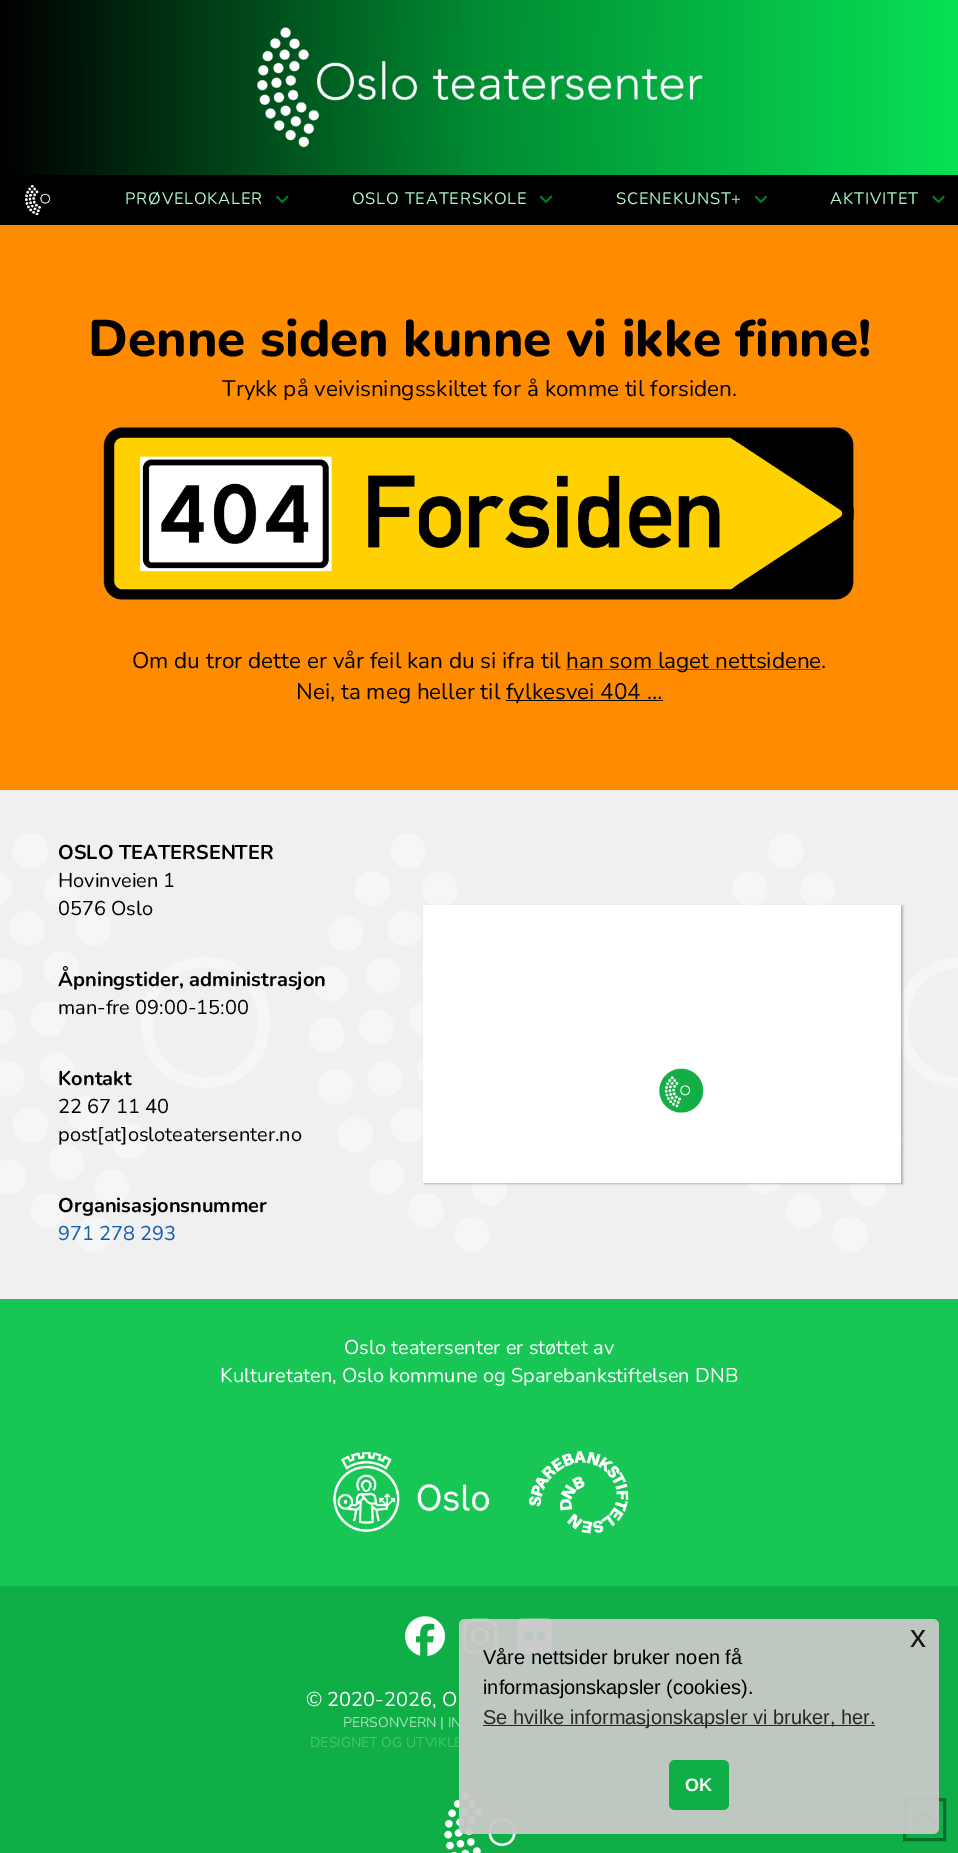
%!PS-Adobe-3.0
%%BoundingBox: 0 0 958 1853
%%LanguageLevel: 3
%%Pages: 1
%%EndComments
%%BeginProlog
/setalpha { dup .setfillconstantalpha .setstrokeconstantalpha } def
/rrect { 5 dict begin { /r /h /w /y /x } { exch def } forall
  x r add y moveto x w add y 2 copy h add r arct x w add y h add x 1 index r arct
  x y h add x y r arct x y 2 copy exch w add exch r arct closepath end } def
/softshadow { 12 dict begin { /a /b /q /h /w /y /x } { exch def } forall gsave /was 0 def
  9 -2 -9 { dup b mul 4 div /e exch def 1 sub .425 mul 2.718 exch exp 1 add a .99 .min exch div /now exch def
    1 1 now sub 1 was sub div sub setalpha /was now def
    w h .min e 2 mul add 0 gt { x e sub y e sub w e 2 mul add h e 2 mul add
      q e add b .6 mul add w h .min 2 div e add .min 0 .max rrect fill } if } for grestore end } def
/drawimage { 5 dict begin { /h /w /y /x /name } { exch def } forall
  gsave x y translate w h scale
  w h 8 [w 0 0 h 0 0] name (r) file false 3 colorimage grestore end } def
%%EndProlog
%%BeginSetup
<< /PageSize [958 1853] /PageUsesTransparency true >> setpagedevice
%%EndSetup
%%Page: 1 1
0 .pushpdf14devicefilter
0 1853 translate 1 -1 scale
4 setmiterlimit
0 setgray
0 0 958 1853 rectfill
gsave newpath 8 0 moveto 958 0 lineto 958 175 lineto 8 175 lineto closepath clip newpath
<< /ShadingType 2 /ColorSpace /DeviceRGB /Coords [0 88 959 87] /Extend [true true] /Function << /FunctionType 3 /Domain [0 1] /Functions [<< /FunctionType 2 /Domain [0 1] /C0 [0 0 0] /C1 [0 0.549 0.196] /N 1 >> << /FunctionType 2 /Domain [0 1] /C0 [0 0.549 0.196] /C1 [0.031 0.882 0.333] /N 1 >>] /Bounds [0.5] /Encode [0 1 0 1] >> >> shfill grestore
(images/1.raw) 257 27 446 121 drawimage
(images/2.raw) 25 185 25 30 drawimage
(images/3.raw) 276 195 13 8 drawimage
(images/4.raw) 539 195 14 8 drawimage
(images/4.raw) 754 195 14 8 drawimage
(images/5.raw) 932 195 13 8 drawimage
1 0.549 0 setrgbcolor
0 225 958 565 rectfill
(images/6.raw) 103 427 751 173 drawimage
0.059 0.365 0.682 setrgbcolor
566 669 255 1 rectfill
0 setgray
506 700 157 1 rectfill
0.941 setgray
0 790 958 509 rectfill
(images/7.raw) 0 834 958 418 drawimage
0 setgray
424 906 479 278 0 1 0.25 softshadow
1 setgray
423 905 478 278 rectfill
(images/8.raw) 659 1068 45 45 drawimage
0.09 0.776 0.333 setrgbcolor
0 1299 958 287 rectfill
(images/9.raw) 333 1451 296 83 drawimage
0.059 0.682 0.278 setrgbcolor
0 1586 958 267 rectfill
(images/10.raw) 405 1616 40 40 drawimage
(images/11.raw) 462 1618 36 36 drawimage
(images/12.raw) 517 1618 36 36 drawimage
(images/13.raw) 444 1792 72 61 drawimage
0.035 0.427 0.173 setrgbcolor
3 setlinewidth
904.5 1799.5 40 40 rectstroke
(images/14.raw) 913 1810 24 15 drawimage
/Nunito-Regular [16.5 0 0 -16.5 0 0] selectfont
0.686 0.98 0.784 setrgbcolor
125 204 moveto 0.8 0 (PRØVELOKALER) ashow
352 204 moveto 0.8 0 (OSLO TEATERSKOLE) ashow
616 204 moveto 0.8 0 (SCENEKUNST+) ashow
830 204 moveto 0.8 0 (AKTIVITET) ashow
/Nunito-ExtraBold [51.4 0 0 -51.4 0 0] selectfont
0 setgray
88 356 moveto (Denne siden kunne vi ikke finne!) show
/Nunito-Regular [22.5 0 0 -22.5 0 0] selectfont
222 396 moveto (Trykk på veivisningsskiltet for å komme til forsiden.) show
132 668 moveto (Om du tror dette er vår feil kan du si ifra til) show
566 668 moveto (han som laget nettsidene.) show
296 699 moveto (Nei, ta meg heller til) show
506 699 moveto (fylkesvei 404 …) show
/Nunito-Bold [20 0 0 -20 0 0] selectfont
58 859 moveto (OSLO TEATERSENTER) show
/Nunito-Regular [20 0 0 -20 0 0] selectfont
58 887 moveto (Hovinveien 1) show
58 915 moveto (0576 Oslo) show
/Nunito-Bold [20 0 0 -20 0 0] selectfont
58 986 moveto (Åpningstider, administrasjon) show
/Nunito-Regular [20 0 0 -20 0 0] selectfont
58 1014 moveto (man-fre 09:00-15:00) show
/Nunito-Bold [20 0 0 -20 0 0] selectfont
58 1085 moveto (Kontakt) show
/Nunito-Regular [20 0 0 -20 0 0] selectfont
58 1113 moveto (22 67 11 40) show
58 1141 moveto (post[at]osloteatersenter.no) show
/Nunito-Bold [20 0 0 -20 0 0] selectfont
58 1212 moveto (Organisasjonsnummer) show
/Nunito-Regular [20 0 0 -20 0 0] selectfont
0.059 0.365 0.682 setrgbcolor
58 1240 moveto (971 278 293) show
1 setgray
344 1354 moveto (Oslo teatersenter er støttet av) show
220 1382 moveto (Kulturetaten, Oslo kommune og Sparebankstiftelsen DNB) show
306 1706 moveto (© 2020-2026, O) show
/Nunito-Regular [14 0 0 -14 0 0] selectfont
0.671 0.89 0.749 setrgbcolor
343 1727 moveto (PERSONVERN | IN) show
0.294 0.761 0.459 setrgbcolor
310 1747 moveto (DESIGNET OG UTVIKLE) show
0.95 setalpha
0.784 setgray
459 1619 480 215 6 rrect fill
/LiberationSans-Regular [32 0 0 -32 0 0] selectfont
1 setalpha
0.075 0.078 0.075 setrgbcolor
910 1647 moveto (x) show
/LiberationSans-Regular [20 0 0 -20 0 0] selectfont
0 setgray
483 1664 moveto (Våre nettsider bruker noen få) show
483 1694 moveto (informasjonskapsler \(cookies\).) show
0.8 setalpha
483 1725 392 1 rectfill
1 setalpha
0.149 0.157 0.153 setrgbcolor
483 1724 moveto (Se hvilke informasjonskapsler vi bruker, her.) show
0.059 0.682 0.278 setrgbcolor
669 1760 60 50 6 rrect fill
/LiberationSans-Bold [18 0 0 -18 0 0] selectfont
1 setgray
685 1791 moveto (OK) show
.poppdf14devicefilter showpage
%%EOF
